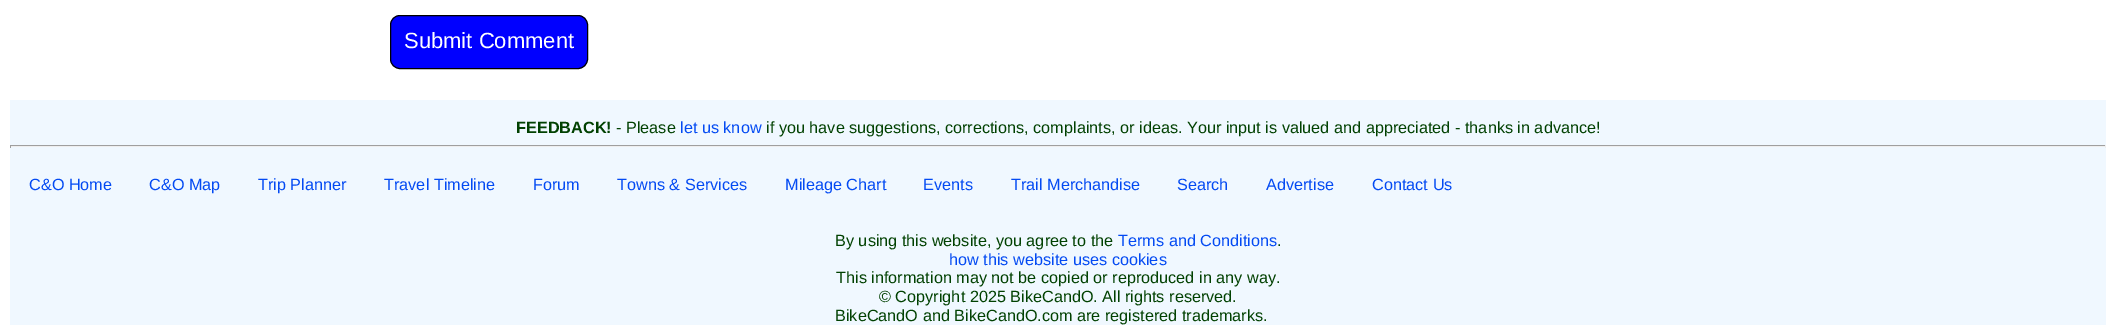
%!PS-Adobe-3.0
%%BoundingBox: 0 0 2116 334
%%LanguageLevel: 3
%%Pages: 1
%%EndComments
%%BeginProlog
/rrect { 5 dict begin { /r /h /w /y /x } { exch def } forall
  x r add y moveto x w add y 2 copy h add r arct x w add y h add x 1 index r arct
  x y h add x y r arct x y 2 copy exch w add exch r arct closepath end } def
%%EndProlog
%%BeginSetup
<< /PageSize [2116 334] >> setpagedevice
%%EndSetup
%%Page: 1 1
0 334 translate 1 -1 scale
4 setmiterlimit
1 setgray
0 0 2116 334 rectfill
0 0 1 setrgbcolor
390.5 15.5 197 53 9.5 rrect gsave fill grestore
0 setgray
stroke
0.941 0.973 1 setrgbcolor
10 100 2096 225 rectfill
0.624 setgray
10 145 2096 1 rectfill
0.933 setgray
2105 145 1 3 rectfill
10 146 2096 1 rectfill
0.624 setgray
10 145 1 3 rectfill
/LiberationSans-Regular [22 0 0 -22 0 0] selectfont
1 setgray
404 48 moveto (Submit Comment) show
/LiberationSans-Bold [16.25 0 0 -16.25 0 0] selectfont
0.004 0.255 0.004 setrgbcolor
516 133 moveto (FEEDBACK!) show
/LiberationSans-Regular [16.25 0 0 -16.25 0 0] selectfont
616 133 moveto (- Please) show
0.012 0.29 0.953 setrgbcolor
680 133 moveto (let us know) show
0.004 0.255 0.004 setrgbcolor
766 133 moveto (if you have suggestions, corrections, complaints, or ideas. Your input is valued and appreciated - thanks in advance!) show
0.012 0.29 0.953 setrgbcolor
29 190 moveto (C&O Home) show
149 190 moveto (C&O Map) show
258 190 moveto (Trip Planner) show
384 190 moveto (Travel Timeline) show
533 190 moveto (Forum) show
617 190 moveto (Towns & Services) show
785 190 moveto (Mileage Chart) show
923 190 moveto (Events) show
1011 190 moveto (Trail Merchandise) show
1177 190 moveto (Search) show
1266 190 moveto (Advertise) show
1372 190 moveto (Contact Us) show
0.004 0.255 0.004 setrgbcolor
835 246 moveto (By using this website, you agree to the) show
0.012 0.29 0.953 setrgbcolor
1118 246 moveto (Terms and Conditions) show
0.004 0.255 0.004 setrgbcolor
1277 246 moveto (.) show
0.012 0.29 0.953 setrgbcolor
949 265 moveto (how this website uses cookies) show
0.004 0.255 0.004 setrgbcolor
836 283 moveto (This information may not be copied or reproduced in any way.) show
879 302 moveto (© Copyright 2025 BikeCandO. All rights reserved.) show
835 321 moveto (BikeCandO and BikeCandO.com are registered trademarks.) show
showpage
%%EOF
